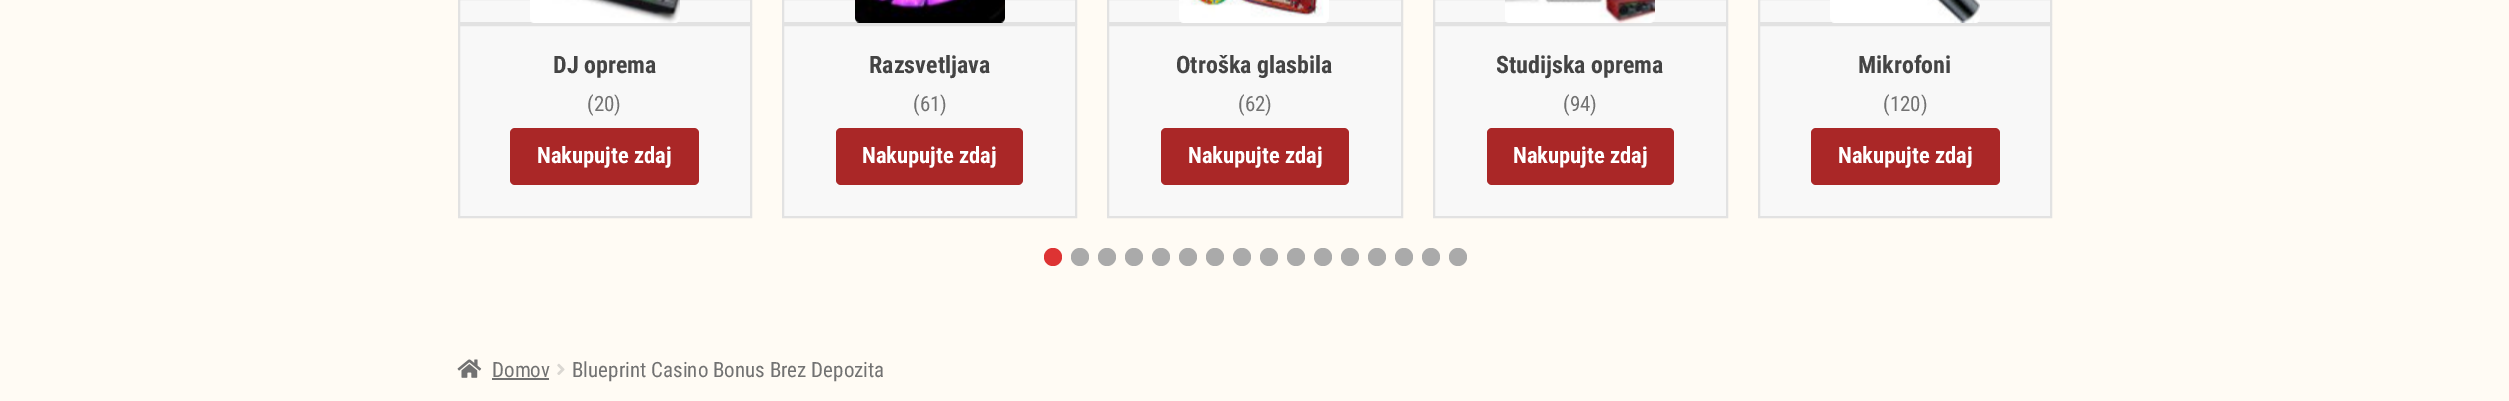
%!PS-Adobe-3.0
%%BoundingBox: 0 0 2509 401
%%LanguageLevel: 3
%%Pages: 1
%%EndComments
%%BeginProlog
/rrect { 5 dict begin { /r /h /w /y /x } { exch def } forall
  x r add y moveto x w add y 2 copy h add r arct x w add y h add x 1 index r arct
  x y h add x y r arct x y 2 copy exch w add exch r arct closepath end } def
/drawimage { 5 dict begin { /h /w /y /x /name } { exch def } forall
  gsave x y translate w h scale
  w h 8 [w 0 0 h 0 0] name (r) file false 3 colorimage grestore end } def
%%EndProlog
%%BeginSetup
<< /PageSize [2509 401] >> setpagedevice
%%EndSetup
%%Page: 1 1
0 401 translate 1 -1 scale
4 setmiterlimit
1 0.984 0.957 setrgbcolor
0 0 2509 401 rectfill
0.973 setgray
460 0 290 216 rectfill
0.886 setgray
2 setlinewidth
459 -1 292 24 rectstroke
(images/1.raw) 530 0 150 23 drawimage
459 25 292 192 rectstroke
0.667 0.153 0.153 setrgbcolor
510 128 189 57 5 rrect fill
0.973 setgray
784 0 291 216 rectfill
0.886 setgray
783 -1 293 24 rectstroke
(images/2.raw) 855 0 150 23 drawimage
783 25 293 192 rectstroke
0.667 0.153 0.153 setrgbcolor
836 128 187 57 5 rrect fill
0.973 setgray
1109 0 292 216 rectfill
0.886 setgray
1108 -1 294 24 rectstroke
(images/3.raw) 1179 0 150 23 drawimage
1108 25 294 192 rectstroke
0.667 0.153 0.153 setrgbcolor
1161 128 188 57 5 rrect fill
0.973 setgray
1435 0 291 216 rectfill
0.886 setgray
1434 -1 293 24 rectstroke
(images/4.raw) 1505 0 150 23 drawimage
1434 25 293 192 rectstroke
0.667 0.153 0.153 setrgbcolor
1487 128 187 57 5 rrect fill
0.973 setgray
1760 0 290 216 rectfill
0.886 setgray
1759 -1 292 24 rectstroke
(images/5.raw) 1830 0 150 23 drawimage
1759 25 292 192 rectstroke
0.667 0.153 0.153 setrgbcolor
1811 128 189 57 5 rrect fill
0.867 0.2 0.2 setrgbcolor
newpath 1053 257 9 0 360 arc closepath fill
0.667 setgray
newpath 1080 257 9 0 360 arc closepath fill
newpath 1107 257 9 0 360 arc closepath fill
newpath 1134 257 9 0 360 arc closepath fill
newpath 1161 257 9 0 360 arc closepath fill
newpath 1188 257 9 0 360 arc closepath fill
newpath 1215 257 9 0 360 arc closepath fill
newpath 1242 257 9 0 360 arc closepath fill
newpath 1269 257 9 0 360 arc closepath fill
newpath 1296 257 9 0 360 arc closepath fill
newpath 1323 257 9 0 360 arc closepath fill
newpath 1350 257 9 0 360 arc closepath fill
newpath 1377 257 9 0 360 arc closepath fill
newpath 1404 257 9 0 360 arc closepath fill
newpath 1431 257 9 0 360 arc closepath fill
newpath 1458 257 9 0 360 arc closepath fill
(images/6.raw) 457 359 25 19 drawimage
0.447 setgray
492 378 57 2 rectfill
(images/7.raw) 557 363 8 12 drawimage
/RobotoCondensed-Bold [24 0 0 -24 0 0] selectfont
0.267 setgray
553 73 moveto (DJ oprema) show
/RobotoCondensed-Regular [21 0 0 -21 0 0] selectfont
0.447 setgray
587 111 moveto (\(20\)) show
/RobotoCondensed-Bold [22.5 0 0 -22.5 0 0] selectfont
1 setgray
537 163 moveto (Nakupujte zdaj) show
/RobotoCondensed-Bold [24 0 0 -24 0 0] selectfont
0.267 setgray
869 73 moveto (Razsvetljava) show
/RobotoCondensed-Regular [21 0 0 -21 0 0] selectfont
0.447 setgray
913 111 moveto (\(61\)) show
/RobotoCondensed-Bold [22.5 0 0 -22.5 0 0] selectfont
1 setgray
862 163 moveto (Nakupujte zdaj) show
/RobotoCondensed-Bold [24 0 0 -24 0 0] selectfont
0.267 setgray
1176 73 moveto (Otroška glasbila) show
/RobotoCondensed-Regular [21 0 0 -21 0 0] selectfont
0.447 setgray
1238 111 moveto (\(62\)) show
/RobotoCondensed-Bold [22.5 0 0 -22.5 0 0] selectfont
1 setgray
1188 163 moveto (Nakupujte zdaj) show
/RobotoCondensed-Bold [24 0 0 -24 0 0] selectfont
0.267 setgray
1496 73 moveto (Studijska oprema) show
/RobotoCondensed-Regular [21 0 0 -21 0 0] selectfont
0.447 setgray
1563 111 moveto (\(94\)) show
/RobotoCondensed-Bold [22.5 0 0 -22.5 0 0] selectfont
1 setgray
1513 163 moveto (Nakupujte zdaj) show
/RobotoCondensed-Bold [24 0 0 -24 0 0] selectfont
0.267 setgray
1858 73 moveto (Mikrofoni) show
/RobotoCondensed-Regular [21 0 0 -21 0 0] selectfont
0.447 setgray
1883 111 moveto (\(120\)) show
/RobotoCondensed-Bold [22.5 0 0 -22.5 0 0] selectfont
1 setgray
1838 163 moveto (Nakupujte zdaj) show
/RobotoCondensed-Regular [21 0 0 -21 0 0] selectfont
0.447 setgray
492 377 moveto (Domov) show
572 377 moveto (Blueprint Casino Bonus Brez Depozita) show
showpage
%%EOF
